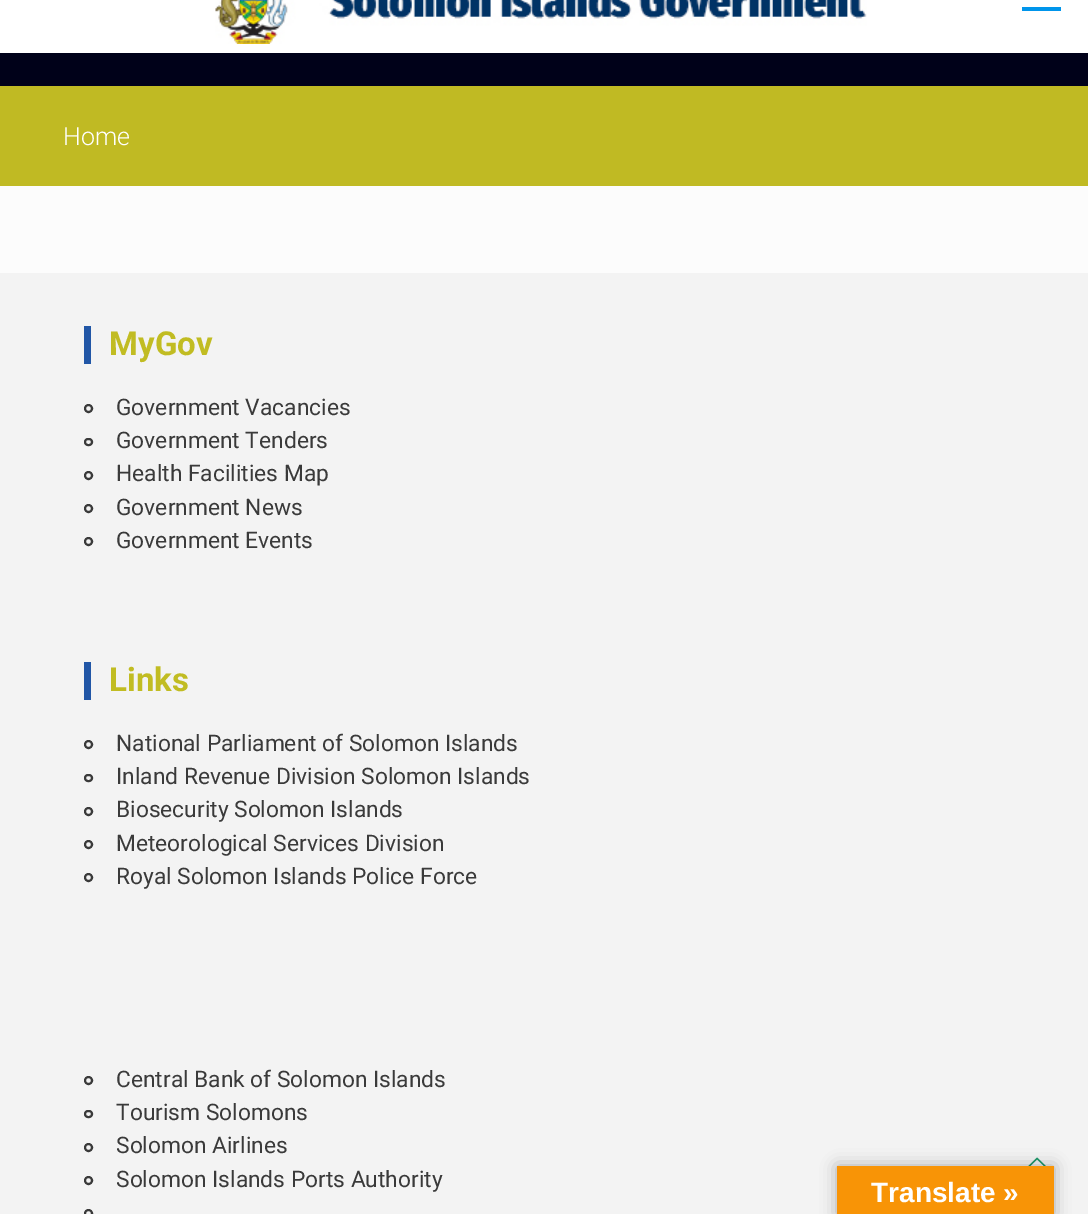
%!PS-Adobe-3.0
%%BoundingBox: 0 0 1088 1214
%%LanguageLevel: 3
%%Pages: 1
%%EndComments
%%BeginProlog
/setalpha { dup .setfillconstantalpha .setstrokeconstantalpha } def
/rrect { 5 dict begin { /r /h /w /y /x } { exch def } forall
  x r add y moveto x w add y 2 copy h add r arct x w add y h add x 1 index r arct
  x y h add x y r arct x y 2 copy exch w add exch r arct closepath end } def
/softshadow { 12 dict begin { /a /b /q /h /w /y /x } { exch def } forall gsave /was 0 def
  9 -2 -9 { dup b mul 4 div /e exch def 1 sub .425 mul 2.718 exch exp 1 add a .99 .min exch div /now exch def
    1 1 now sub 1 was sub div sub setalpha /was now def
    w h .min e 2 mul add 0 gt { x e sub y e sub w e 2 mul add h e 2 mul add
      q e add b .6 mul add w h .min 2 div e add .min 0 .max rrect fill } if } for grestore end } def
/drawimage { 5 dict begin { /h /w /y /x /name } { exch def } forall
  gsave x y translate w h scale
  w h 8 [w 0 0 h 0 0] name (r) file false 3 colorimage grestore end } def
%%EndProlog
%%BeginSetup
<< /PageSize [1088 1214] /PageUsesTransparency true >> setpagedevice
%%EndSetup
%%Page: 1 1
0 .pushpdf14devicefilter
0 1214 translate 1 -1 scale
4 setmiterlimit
0.988 setgray
0 0 1088 1214 rectfill
0 0.004 0.098 setrgbcolor
0 53 1088 33 rectfill
1 setgray
0 0 1088 53 rectfill
(images/1.raw) 215 0 652 44 drawimage
0 0.584 0.922 setrgbcolor
1022 7 39 4 rectfill
0.753 0.729 0.137 setrgbcolor
0 86 1088 100 rectfill
0.953 setgray
0 273 1088 941 rectfill
0.129 0.337 0.651 setrgbcolor
84 326 7 38 rectfill
0.227 setgray
2 setlinewidth
newpath 88.5 408.5 3.5 0 360 arc closepath stroke
85 439 7 6 3 rrect stroke
newpath 88.5 475.5 3.5 0 360 arc closepath stroke
newpath 88.5 508.5 3.5 0 360 arc closepath stroke
newpath 88.5 541.5 3.5 0 360 arc closepath stroke
0.129 0.337 0.651 setrgbcolor
84 662 7 38 rectfill
0.227 setgray
newpath 88.5 744.5 3.5 0 360 arc closepath stroke
85 775 7 6 3 rrect stroke
newpath 88.5 811.5 3.5 0 360 arc closepath stroke
newpath 88.5 844.5 3.5 0 360 arc closepath stroke
newpath 88.5 877.5 3.5 0 360 arc closepath stroke
newpath 88.5 1080.5 3.5 0 360 arc closepath stroke
85 1111 7 6 3 rrect stroke
newpath 88.5 1147.5 3.5 0 360 arc closepath stroke
newpath 88.5 1180.5 3.5 0 360 arc closepath stroke
newpath 88.5 1213.5 3.5 0 360 arc closepath stroke
(images/2.raw) 1028 1157 18 9 drawimage
0 setgray
837 1166 217 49 0 8 0.3 softshadow
0.973 0.58 0.024 setrgbcolor
837 1166 217 48 rectfill
/Roboto-Light [25 0 0 -25 0 0] selectfont
1 setgray
63 145 moveto (Home) show
/Roboto-Bold [33 0 0 -33 0 0] selectfont
0.757 0.737 0.133 setrgbcolor
109 355 moveto (MyGov) show
/Roboto-Regular [22.75 0 0 -22.75 0 0] selectfont
0.227 setgray
116 415 moveto (Government Vacancies) show
116 448 moveto (Government Tenders) show
116 481 moveto (Health Facilities Map) show
116 515 moveto (Government News) show
116 548 moveto (Government Events) show
/Roboto-Bold [33 0 0 -33 0 0] selectfont
0.757 0.737 0.133 setrgbcolor
109 691 moveto (Links) show
/Roboto-Regular [22.75 0 0 -22.75 0 0] selectfont
0.227 setgray
116 751 moveto (National Parliament of Solomon Islands) show
116 784 moveto (Inland Revenue Division Solomon Islands) show
116 817 moveto (Biosecurity Solomon Islands) show
116 851 moveto (Meteorological Services Division) show
116 884 moveto (Royal Solomon Islands Police Force) show
116 1087 moveto (Central Bank of Solomon Islands) show
116 1120 moveto (Tourism Solomons) show
116 1153 moveto (Solomon Airlines) show
116 1187 moveto (Solomon Islands Ports Authority) show
/LiberationSans-Bold [28 0 0 -28 0 0] selectfont
1 setgray
871 1202 moveto (Translate ») show
.poppdf14devicefilter showpage
%%EOF
